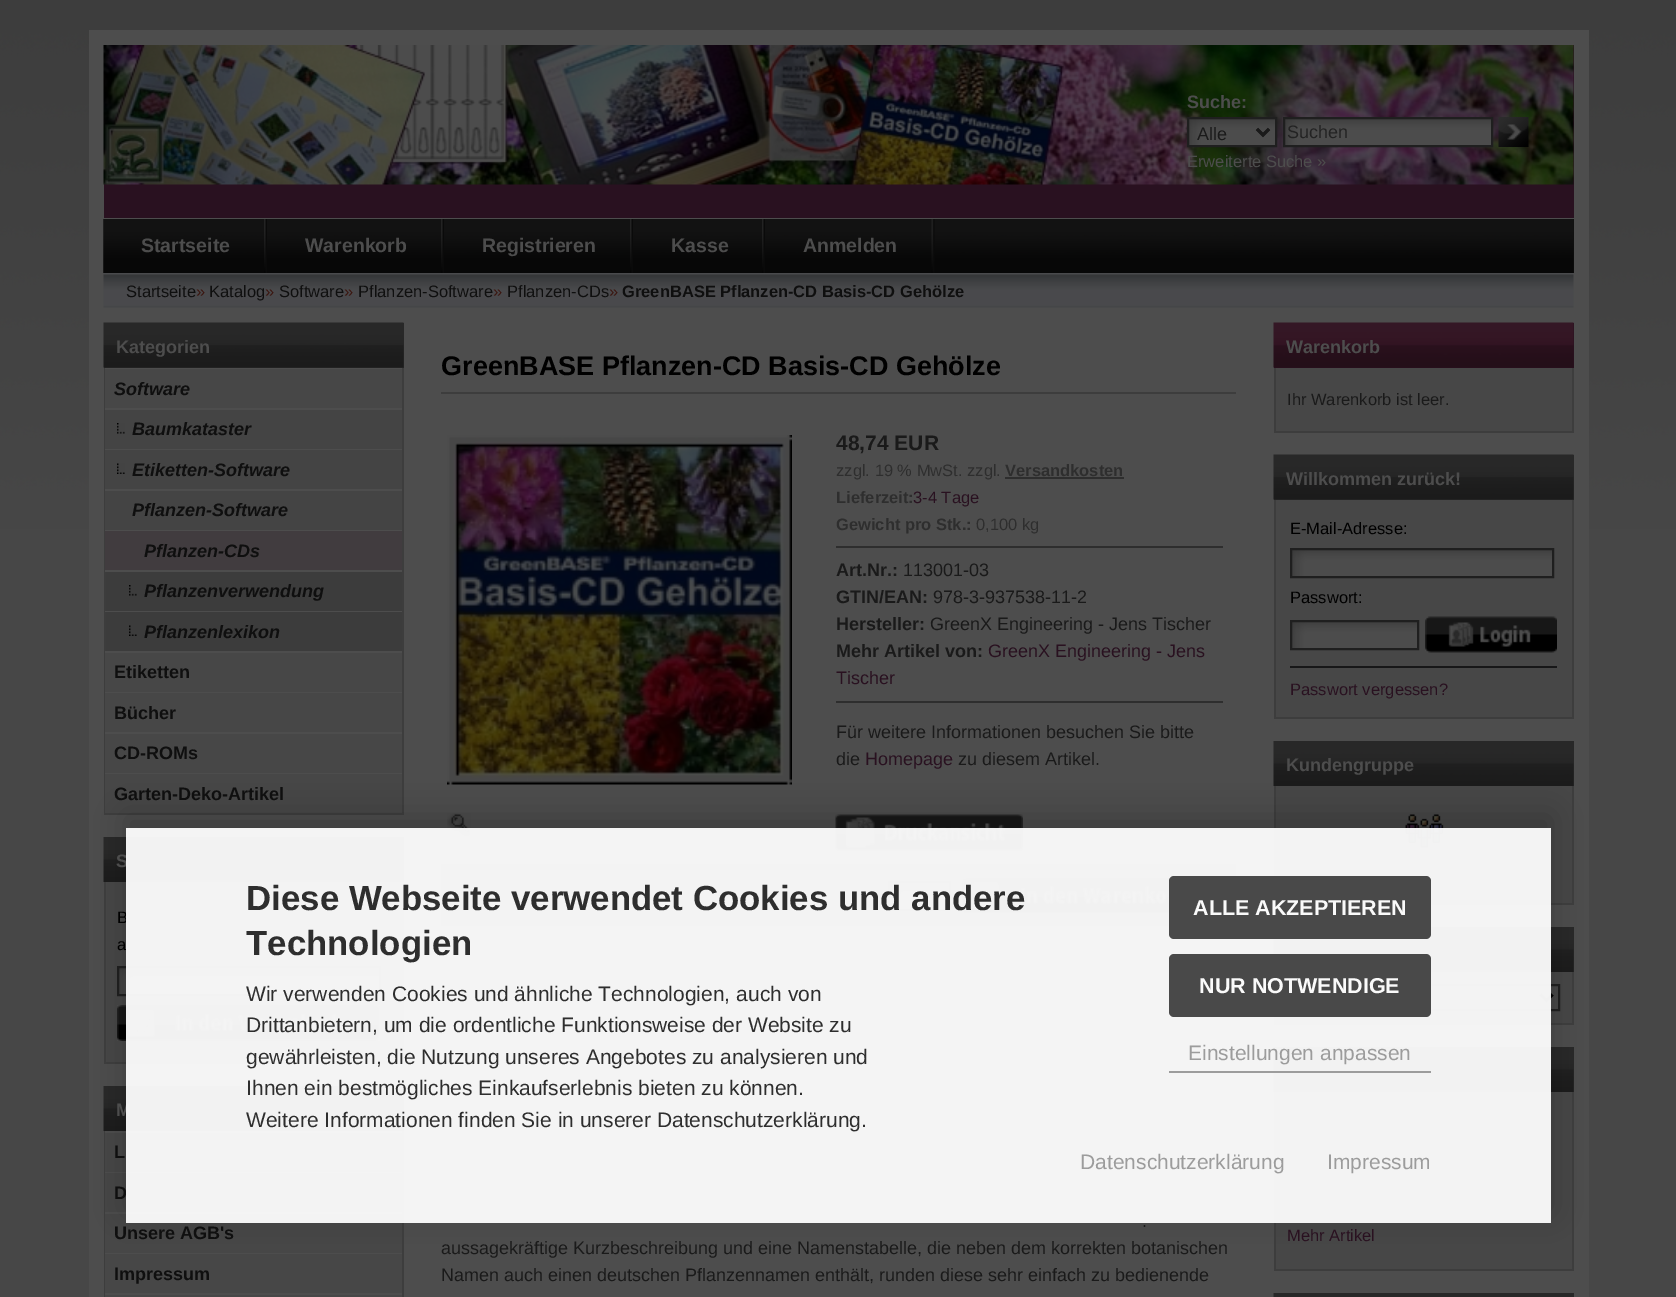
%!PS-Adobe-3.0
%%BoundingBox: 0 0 1676 1297
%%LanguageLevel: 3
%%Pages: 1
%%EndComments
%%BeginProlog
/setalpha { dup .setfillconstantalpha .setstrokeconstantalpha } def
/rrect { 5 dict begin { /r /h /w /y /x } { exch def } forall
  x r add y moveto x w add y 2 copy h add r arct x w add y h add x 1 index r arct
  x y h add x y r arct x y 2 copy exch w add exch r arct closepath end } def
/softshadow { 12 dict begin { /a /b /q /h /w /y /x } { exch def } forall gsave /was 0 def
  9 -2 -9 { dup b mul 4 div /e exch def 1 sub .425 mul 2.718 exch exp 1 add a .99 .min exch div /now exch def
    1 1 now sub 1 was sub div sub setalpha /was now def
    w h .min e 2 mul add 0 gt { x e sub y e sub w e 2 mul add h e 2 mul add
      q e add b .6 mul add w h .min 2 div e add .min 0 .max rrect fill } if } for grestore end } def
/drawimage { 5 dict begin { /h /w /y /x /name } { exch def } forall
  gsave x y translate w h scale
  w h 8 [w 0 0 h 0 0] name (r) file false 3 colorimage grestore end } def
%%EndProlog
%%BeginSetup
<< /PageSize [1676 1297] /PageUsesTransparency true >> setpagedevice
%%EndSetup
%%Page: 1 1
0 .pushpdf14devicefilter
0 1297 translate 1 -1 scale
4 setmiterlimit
0.278 setgray
0 0 1676 1297 rectfill
(images/1.raw) 0 0 1676 529 drawimage
0.302 setgray
104 273 1470 1024 rectfill
1574 30 15 1267 rectfill
89 30 15 1267 rectfill
0.161 0.067 0.125 setrgbcolor
104 45 1470 173 rectfill
(images/2.raw) 103 45 1471 140 drawimage
0.302 setgray
104 30 1470 15 rectfill
104 218 1470 1 rectfill
(images/3.raw) 1189 119 86 26 drawimage
0.122 setgray
2 setlinewidth
1188 118 88 28 rectstroke
0.102 setgray
3 setlinewidth
newpath 1257 129 moveto 1263 135 lineto 1269 129 lineto stroke
(images/4.raw) 1285 119 206 26 drawimage
0.122 setgray
2 setlinewidth
1284 118 208 28 rectstroke
(images/5.raw) 1498 117 31 30 drawimage
0.059 setgray
1573 219 1 54 rectfill
(images/6.raw) 103 219 1471 54 drawimage
(images/7.raw) 103 219 1 54 drawimage
(images/8.raw) 264 219 3 54 drawimage
(images/8.raw) 441 219 3 54 drawimage
(images/9.raw) 630 219 3 54 drawimage
(images/9.raw) 762 219 3 54 drawimage
(images/10.raw) 931 219 4 54 drawimage
(images/11.raw) 103 273 1471 35 drawimage
0.157 setgray
104 323 300 45 rectfill
(images/12.raw) 103 322 301 46 drawimage
0.239 setgray
402 368 2 447 rectfill
104 813 300 2 rectfill
104 368 2 447 rectfill
0.302 setgray
105 368 1 1 rectfill
0.278 setgray
105 369 297 39 rectfill
0.302 setgray
105 408 1 2 rectfill
0.267 setgray
105 410 297 39 rectfill
(images/13.raw) 117 423 8 11 drawimage
0.302 setgray
105 449 1 1 rectfill
0.267 setgray
105 450 297 39 rectfill
(images/14.raw) 117 463 8 11 drawimage
0.302 setgray
105 489 1 2 rectfill
0.267 setgray
105 491 297 39 rectfill
0.302 setgray
105 530 1 1 rectfill
0.255 0.235 0.247 setrgbcolor
105 531 297 39 rectfill
0.302 setgray
105 570 1 2 rectfill
0.235 setgray
106 572 296 39 rectfill
(images/15.raw) 129 585 8 11 drawimage
0.302 setgray
105 611 1 1 rectfill
0.235 setgray
106 612 296 39 rectfill
(images/16.raw) 129 625 8 11 drawimage
0.302 setgray
105 651 1 2 rectfill
0.278 setgray
105 653 297 39 rectfill
0.302 setgray
105 692 1 1 rectfill
0.278 setgray
105 693 297 39 rectfill
0.302 setgray
105 732 1 2 rectfill
0.278 setgray
105 734 297 39 rectfill
0.302 setgray
105 773 1 1 rectfill
0.278 setgray
105 774 297 39 rectfill
0.157 setgray
403 837 1 45 rectfill
(images/17.raw) 103 837 301 45 drawimage
0.278 setgray
106 882 296 180 rectfill
0.239 setgray
402 882 2 182 rectfill
104 1062 300 2 rectfill
104 882 2 182 rectfill
(images/18.raw) 119 968 260 26 drawimage
0.122 setgray
118 967 262 28 rectstroke
(images/19.raw) 117 1005 263 36 drawimage
0.157 setgray
403 1086 1 45 rectfill
(images/17.raw) 103 1086 301 45 drawimage
0.239 setgray
402 1131 2 166 rectfill
104 1131 1 166 rectfill
0.278 setgray
105 1133 297 39 rectfill
105 1173 297 39 rectfill
105 1214 297 39 rectfill
105 1254 297 39 rectfill
105 1295 297 2 rectfill
0.239 setgray
441 392 795 2 rectfill
(images/20.raw) 447 435 345 350 drawimage
(images/21.raw) 447 813 24 24 drawimage
0.18 setgray
1005 477 119 2 rectfill
836 546 387 2 rectfill
836 701 387 2 rectfill
(images/22.raw) 835 814 188 37 drawimage
0.278 setgray
441 866 795 60 rectfill
0.18 setgray
441 864 795 2 rectfill
(images/23.raw) 890 883 59 26 drawimage
0.122 setgray
889 882 61 28 rectstroke
(images/24.raw) 961 877 210 37 drawimage
0.161 0.067 0.125 setrgbcolor
1274 323 300 45 rectfill
(images/25.raw) 1273 322 301 46 drawimage
0.278 setgray
1276 368 296 63 rectfill
0.239 setgray
1572 368 2 64 rectfill
1274 431 300 2 rectfill
1274 368 2 64 rectfill
0.157 setgray
1274 455 300 45 rectfill
(images/26.raw) 1273 454 301 46 drawimage
0.278 setgray
1276 500 296 217 rectfill
0.239 setgray
1572 500 2 219 rectfill
1274 717 300 2 rectfill
1274 500 2 219 rectfill
(images/27.raw) 1292 550 260 26 drawimage
0.122 setgray
1291 549 262 28 rectstroke
(images/28.raw) 1292 622 125 26 drawimage
1291 621 127 28 rectstroke
(images/29.raw) 1425 616 132 37 drawimage
0.09 0.09 0.094 setrgbcolor
1290 666 267 2 rectfill
0.157 setgray
1573 741 1 45 rectfill
(images/17.raw) 1273 741 301 45 drawimage
0.278 setgray
1276 786 296 117 rectfill
0.239 setgray
1572 786 2 119 rectfill
1431 903 143 2 rectfill
1274 786 2 90 rectfill
(images/30.raw) 1405 814 39 34 drawimage
0.157 setgray
1573 927 1 45 rectfill
(images/17.raw) 1273 927 301 45 drawimage
0.278 setgray
1276 972 296 51 rectfill
0.239 setgray
1572 972 2 53 rectfill
1274 1023 300 2 rectfill
1274 1017 2 8 rectfill
0.122 setgray
1288 985 271 25 rectstroke
0 setgray
3 setlinewidth
newpath 1540.5 994.5 moveto 1546.5 1000.5 lineto 1552.5 994.5 lineto stroke
0.157 setgray
1573 1047 1 45 rectfill
(images/17.raw) 1273 1047 301 45 drawimage
0.278 setgray
1276 1092 296 177 rectfill
0.239 setgray
1572 1092 2 179 rectfill
1274 1269 300 2 rectfill
1274 1092 2 179 rectfill
0.157 setgray
1274 1293 300 4 rectfill
0.231 setgray
1273 1293 1 4 rectfill
gsave
newpath 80 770 moveto 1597 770 lineto 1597 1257 lineto 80 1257 lineto closepath 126 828 moveto 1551 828 lineto 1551 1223 lineto 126 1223 lineto closepath eoclip newpath
0 setgray
126 816 1425 395 0 15 0.19 softshadow
grestore
/LiberationSans-Bold [18 0 0 -18 0 0] selectfont
0.302 setgray
1187 108 moveto (Suche:) show
/LiberationSans-Regular [18 0 0 -18 0 0] selectfont
0.102 setgray
1197 140 moveto (Alle) show
0.137 setgray
1287 138 moveto (Suchen) show
/LiberationSans-Regular [16.5 0 0 -16.5 0 0] selectfont
0.302 setgray
1187 167 moveto (Erweiterte Suche ») show
/LiberationSans-Bold [19.5 0 0 -19.5 0 0] selectfont
141 252 moveto (Startseite) show
305 252 moveto (Warenkorb) show
482 252 moveto (Registrieren) show
671 252 moveto (Kasse) show
803 252 moveto (Anmelden) show
/LiberationSans-Regular [16.5 0 0 -16.5 0 0] selectfont
0.059 setgray
126 297 moveto (Startseite) show
0.231 0.086 0.063 setrgbcolor
196 297 moveto (») show
0.059 setgray
209 297 moveto (Katalog) show
0.231 0.086 0.063 setrgbcolor
265 297 moveto (») show
0.059 setgray
279 297 moveto (Software) show
0.231 0.086 0.063 setrgbcolor
344 297 moveto (») show
0.059 setgray
358 297 moveto (Pflanzen-Software) show
0.231 0.086 0.063 setrgbcolor
493 297 moveto (») show
0.059 setgray
507 297 moveto (Pflanzen-CDs) show
0.231 0.086 0.063 setrgbcolor
609 297 moveto (») show
/LiberationSans-Bold [16.5 0 0 -16.5 0 0] selectfont
0.059 setgray
622 297 moveto (GreenBASE Pflanzen-CD Basis-CD Gehölze) show
/LiberationSans-Bold [18 0 0 -18 0 0] selectfont
0.302 setgray
116 353 moveto (Kategorien) show
/LiberationSans-BoldItalic [18 0 0 -18 0 0] selectfont
0.059 setgray
114 395 moveto (Software) show
132 435 moveto (Baumkataster) show
132 476 moveto (Etiketten-Software) show
132 516 moveto (Pflanzen-Software) show
144 557 moveto (Pflanzen-CDs) show
144 597 moveto (Pflanzenverwendung) show
144 638 moveto (Pflanzenlexikon) show
/LiberationSans-Bold [18 0 0 -18 0 0] selectfont
114 678 moveto (Etiketten) show
114 719 moveto (Bücher) show
114 759 moveto (CD-ROMs) show
114 800 moveto (Garten-Deko-Artikel) show
0.302 setgray
116 867 moveto (S) show
/LiberationSans-Regular [16.5 0 0 -16.5 0 0] selectfont
0 setgray
117 923 moveto (B) show
117 950 moveto (a) show
/LiberationSans-Bold [18 0 0 -18 0 0] selectfont
0.302 setgray
116 1116 moveto (M) show
0.059 setgray
114 1158 moveto (L) show
114 1199 moveto (D) show
114 1239 moveto (Unsere AGB's) show
114 1280 moveto (Impressum) show
/LiberationSans-Bold [27 0 0 -27 0 0] selectfont
0 setgray
441 375 moveto (GreenBASE Pflanzen-CD Basis-CD Gehölze) show
/LiberationSans-Bold [21 0 0 -21 0 0] selectfont
0.102 setgray
836 450 moveto (48,74 EUR) show
/LiberationSans-Regular [16.5 0 0 -16.5 0 0] selectfont
0.18 setgray
836 476 moveto (zzgl. 19 % MwSt. zzgl.) show
/LiberationSans-Bold [16.5 0 0 -16.5 0 0] selectfont
1005 476 moveto (Versandkosten) show
836 503 moveto (Lieferzeit:) show
/LiberationSans-Regular [16.5 0 0 -16.5 0 0] selectfont
0.161 0.067 0.125 setrgbcolor
913 503 moveto (3-4 Tage) show
/LiberationSans-Bold [16.5 0 0 -16.5 0 0] selectfont
0.18 setgray
836 530 moveto (Gewicht pro Stk.:) show
/LiberationSans-Regular [16.5 0 0 -16.5 0 0] selectfont
976 530 moveto (0,100 kg) show
/LiberationSans-Bold [18 0 0 -18 0 0] selectfont
0.102 setgray
836 576 moveto (Art.Nr.:) show
/LiberationSans-Regular [18 0 0 -18 0 0] selectfont
903 576 moveto (113001-03) show
/LiberationSans-Bold [18 0 0 -18 0 0] selectfont
836 603 moveto (GTIN/EAN:) show
/LiberationSans-Regular [18 0 0 -18 0 0] selectfont
933 603 moveto (978-3-937538-11-2) show
/LiberationSans-Bold [18 0 0 -18 0 0] selectfont
836 630 moveto (Hersteller:) show
/LiberationSans-Regular [18 0 0 -18 0 0] selectfont
930 630 moveto (GreenX Engineering - Jens Tischer) show
/LiberationSans-Bold [18 0 0 -18 0 0] selectfont
836 657 moveto (Mehr Artikel von:) show
/LiberationSans-Regular [18 0 0 -18 0 0] selectfont
0.161 0.067 0.125 setrgbcolor
988 657 moveto (GreenX Engineering - Jens) show
836 684 moveto (Tischer) show
0.102 setgray
836 738 moveto (Für weitere Informationen besuchen Sie bitte) show
836 765 moveto (die) show
0.161 0.067 0.125 setrgbcolor
865 765 moveto (Homepage) show
0.102 setgray
958 765 moveto (zu diesem Artikel.) show
1142 1227 moveto (.) show
441 1254 moveto (aussagekräftige Kurzbeschreibung und eine Namenstabelle, die neben dem korrekten botanischen) show
441 1281 moveto (Namen auch einen deutschen Pflanzennamen enthält, runden diese sehr einfach zu bedienende) show
/LiberationSans-Bold [18 0 0 -18 0 0] selectfont
0.302 setgray
1286 353 moveto (Warenkorb) show
/LiberationSans-Regular [16.5 0 0 -16.5 0 0] selectfont
0.102 setgray
1287 405 moveto (Ihr Warenkorb ist leer.) show
/LiberationSans-Bold [18 0 0 -18 0 0] selectfont
0.302 setgray
1286 485 moveto (Willkommen zurück!) show
/LiberationSans-Regular [16.5 0 0 -16.5 0 0] selectfont
0 setgray
1290 534 moveto (E-Mail-Adresse:) show
1290 603 moveto (Passwort:) show
0.161 0.067 0.125 setrgbcolor
1290 695 moveto (Passwort vergessen?) show
/LiberationSans-Bold [18 0 0 -18 0 0] selectfont
0.302 setgray
1286 771 moveto (Kundengruppe) show
/LiberationSans-Regular [16.5 0 0 -16.5 0 0] selectfont
0.161 0.067 0.125 setrgbcolor
1287 1241 moveto (Mehr Artikel) show
0.97 setalpha
0.976 setgray
126 828 1425 395 rectfill
/LiberationSans-Bold [34.8 0 0 -34.8 0 0] selectfont
1 setalpha
0.18 setgray
246 910 moveto (Diese Webseite verwendet Cookies und andere) show
246 955 moveto (Technologien) show
/LiberationSans-Regular [21 0 0 -21 0 0] selectfont
246 1001 moveto (Wir verwenden Cookies und ähnliche Technologien, auch von) show
246 1032 moveto (Drittanbietern, um die ordentliche Funktionsweise der Website zu) show
246 1064 moveto (gewährleisten, die Nutzung unseres Angebotes zu analysieren und) show
246 1095 moveto (Ihnen ein bestmögliches Einkaufserlebnis bieten zu können.) show
246 1127 moveto (Weitere Informationen finden Sie in unserer Datenschutzerklärung.) show
0.286 setgray
1169 876 262 63 5 rrect fill
/LiberationSans-Bold [21.5 0 0 -21.5 0 0] selectfont
0.98 setgray
1193 915 moveto (ALLE AKZEPTIEREN) show
0.286 setgray
1169 954 262 63 5 rrect fill
0.98 setgray
1199 993 moveto (NUR NOTWENDIGE) show
0.612 setgray
1169 1071 262 2 rectfill
/LiberationSans-Regular [21 0 0 -21 0 0] selectfont
1188 1060 moveto (Einstellungen anpassen) show
1080 1169 moveto (Datenschutzerklärung) show
1327 1169 moveto (Impressum) show
.poppdf14devicefilter showpage
%%EOF
